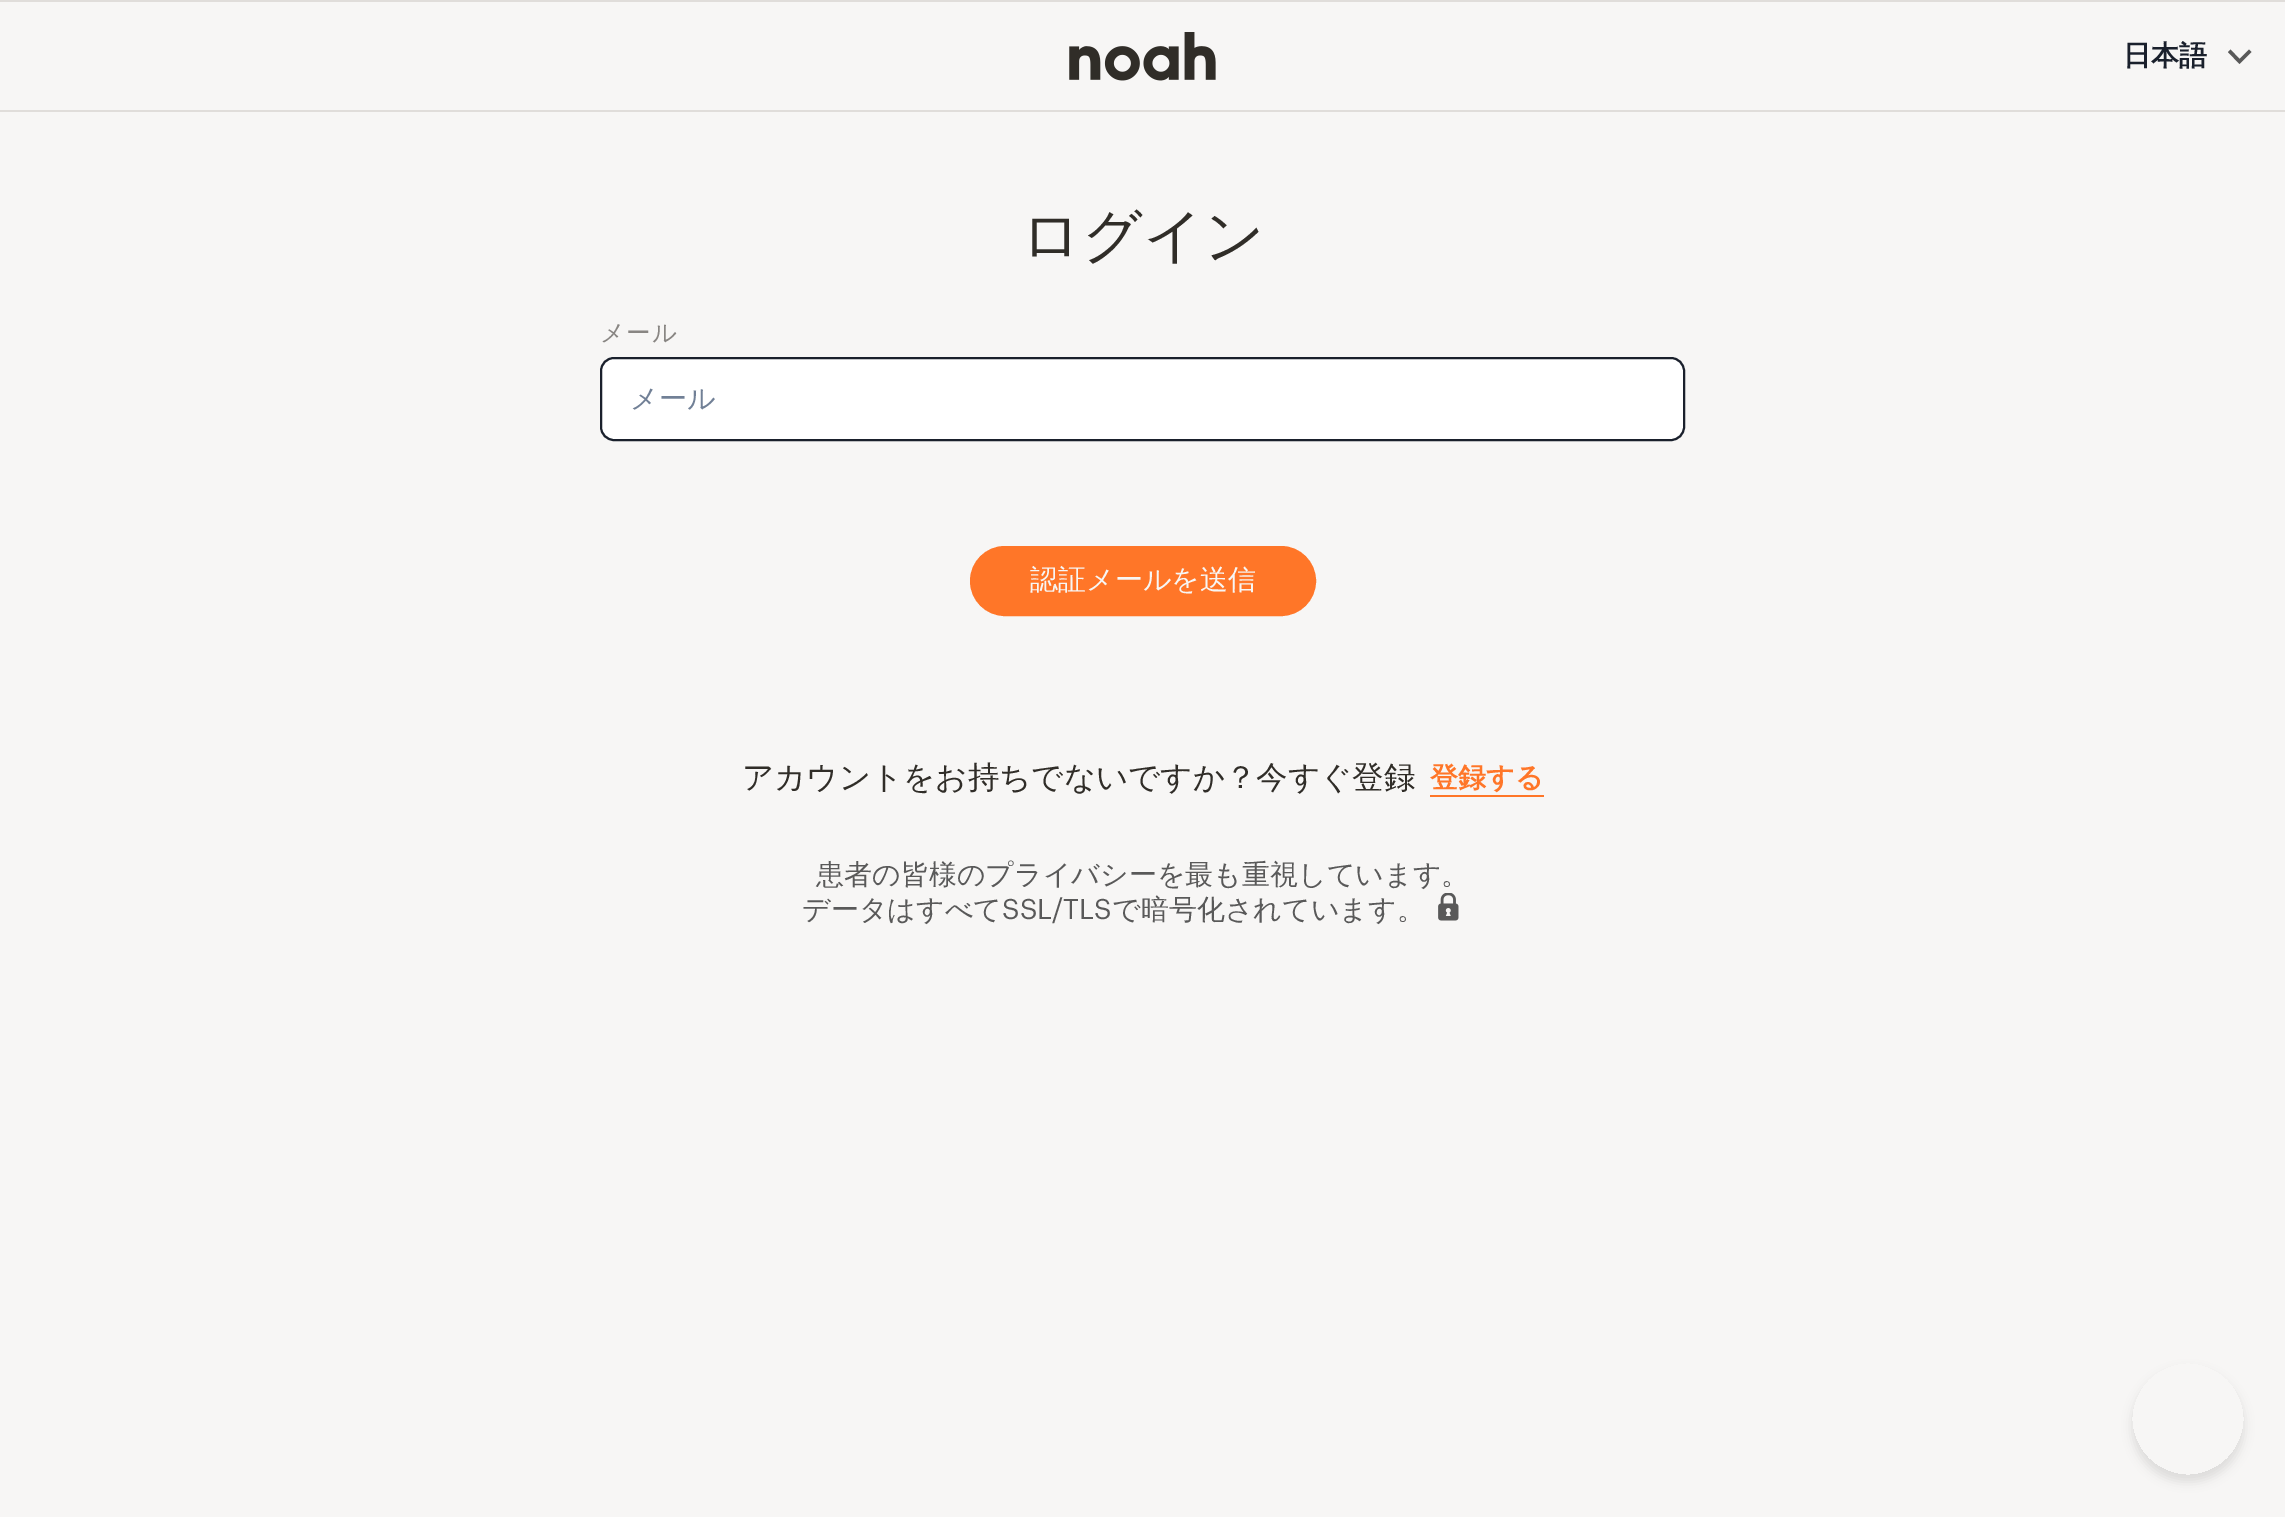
%!PS-Adobe-3.0
%%BoundingBox: 0 0 2285 1517
%%LanguageLevel: 3
%%Pages: 1
%%EndComments
%%BeginProlog
/setalpha { dup .setfillconstantalpha .setstrokeconstantalpha } def
/rrect { 5 dict begin { /r /h /w /y /x } { exch def } forall
  x r add y moveto x w add y 2 copy h add r arct x w add y h add x 1 index r arct
  x y h add x y r arct x y 2 copy exch w add exch r arct closepath end } def
/softshadow { 12 dict begin { /a /b /q /h /w /y /x } { exch def } forall gsave /was 0 def
  9 -2 -9 { dup b mul 4 div /e exch def 1 sub .425 mul 2.718 exch exp 1 add a .99 .min exch div /now exch def
    1 1 now sub 1 was sub div sub setalpha /was now def
    w h .min e 2 mul add 0 gt { x e sub y e sub w e 2 mul add h e 2 mul add
      q e add b .6 mul add w h .min 2 div e add .min 0 .max rrect fill } if } for grestore end } def
/drawimage { 5 dict begin { /h /w /y /x /name } { exch def } forall
  gsave x y translate w h scale
  w h 8 [w 0 0 h 0 0] name (r) file false 3 colorimage grestore end } def
%%EndProlog
%%BeginSetup
<< /PageSize [2285 1517] /PageUsesTransparency true >> setpagedevice
%%EndSetup
%%Page: 1 1
0 .pushpdf14devicefilter
0 1517 translate 1 -1 scale
4 setmiterlimit
0.969 0.965 0.961 setrgbcolor
0 0 2285 1517 rectfill
0.878 0.867 0.855 setrgbcolor
0 0 2285 2 rectfill
0 110 2285 2 rectfill
(images/1.raw) 1069 32 147 49 drawimage
0.349 setgray
newpath 2239.5 64 moveto 2251.5 52 lineto 2249 49.5 lineto 2239.5 59 lineto 2230.5 49.5 lineto 2228 52 lineto closepath eofill
1 setgray
601 358 1083 82 13 rrect gsave fill grestore
0.102 0.125 0.173 setrgbcolor
2 setlinewidth
stroke
1 0.463 0.157 setrgbcolor
972 548 342 66 33 rrect gsave fill grestore
4 setlinewidth
stroke
1430 795 114 2 rectfill
(images/2.raw) 1438 893 21 28 drawimage
gsave
newpath 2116 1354 moveto 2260 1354 lineto 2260 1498 lineto 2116 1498 lineto closepath 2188 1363 moveto 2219 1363 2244 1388 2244 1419 curveto 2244 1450 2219 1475 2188 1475 curveto 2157 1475 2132 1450 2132 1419 curveto 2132 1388 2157 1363 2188 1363 curveto closepath eoclip newpath
0 setgray
2132 1370 112 112 56 5 0.1 softshadow
grestore
/WenQuanYiZenHei-Bold [28 0 0 -28 0 0] selectfont
0.102 0.125 0.173 setrgbcolor
2123 65 moveto (日本語) show
/WenQuanYiZenHei-Medium [59.5 0 0 -59.5 0 0] selectfont
0.188 0.176 0.157 setrgbcolor
1021 256 moveto (ログイン) show
/WenQuanYiZenHei-Medium [24.5 0 0 -24.5 0 0] selectfont
0.537 0.525 0.514 setrgbcolor
600 341 moveto 1 0 (メール) ashow
/WenQuanYiZenHei-Medium [28 0 0 -28 0 0] selectfont
0.443 0.502 0.588 setrgbcolor
630 408 moveto (メール) show
0.969 0.965 0.961 setrgbcolor
1030 589 moveto (認証メールを送信) show
/WenQuanYiZenHei-Medium [31.5 0 0 -31.5 0 0] selectfont
0.188 0.176 0.157 setrgbcolor
742 788 moveto (アカウントをお持ちでないですか？今すぐ登録) show
/WenQuanYiZenHei-Bold [28 0 0 -28 0 0] selectfont
1 0.463 0.157 setrgbcolor
1430 787 moveto (登録する) show
/WenQuanYiZenHei-Medium [28 0 0 -28 0 0] selectfont
0.349 setgray
816 884 moveto (患者の皆様のプライバシーを最も重視しています。) show
802 919 moveto (データはすべて) show
/Graphik-Regular [28 0 0 -28 0 0] selectfont
1002 919 moveto (SSL/TLS) show
/WenQuanYiZenHei-Medium [28 0 0 -28 0 0] selectfont
1112 919 moveto (で暗号化されています。) show
.poppdf14devicefilter showpage
%%EOF
